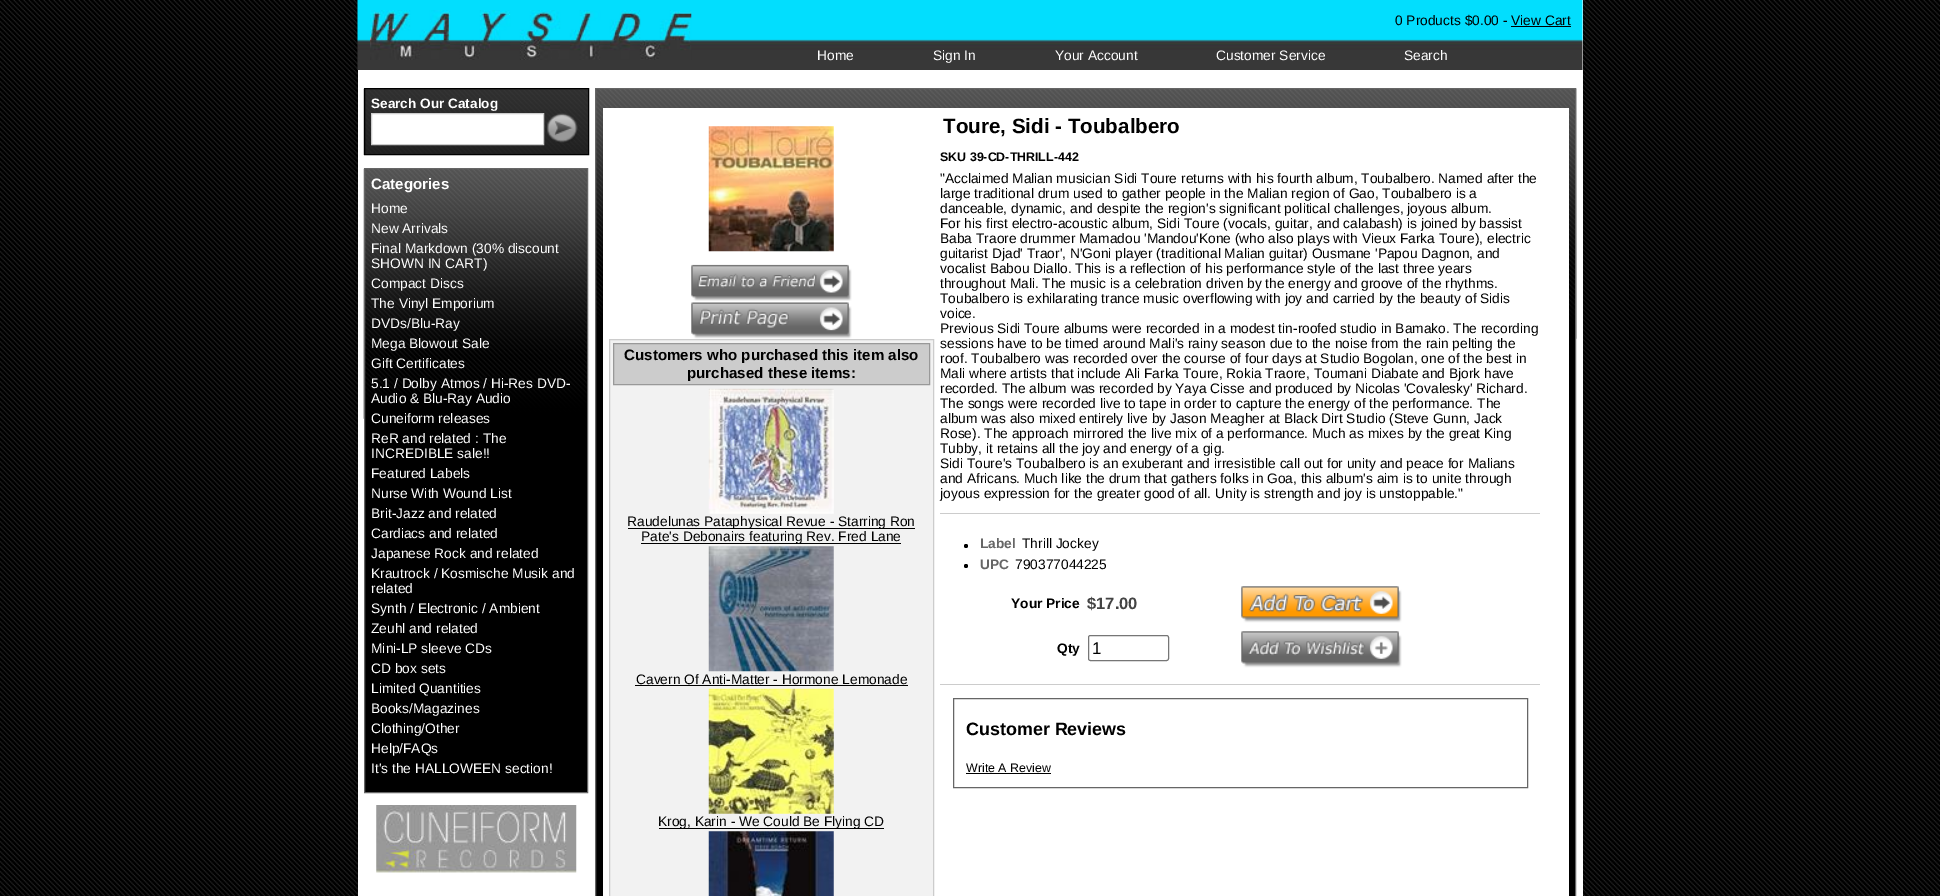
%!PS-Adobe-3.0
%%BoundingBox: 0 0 1940 896
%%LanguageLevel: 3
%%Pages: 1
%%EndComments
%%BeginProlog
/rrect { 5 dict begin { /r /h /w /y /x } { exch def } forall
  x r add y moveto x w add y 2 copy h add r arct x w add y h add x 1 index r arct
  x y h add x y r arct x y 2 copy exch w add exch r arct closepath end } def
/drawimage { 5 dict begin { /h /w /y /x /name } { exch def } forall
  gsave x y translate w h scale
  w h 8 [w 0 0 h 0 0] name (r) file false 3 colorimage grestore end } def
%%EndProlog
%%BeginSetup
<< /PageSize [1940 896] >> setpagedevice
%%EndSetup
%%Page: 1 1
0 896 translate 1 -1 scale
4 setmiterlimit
1 setgray
0 0 1940 896 rectfill
(images/1.raw) 0 0 1940 896 drawimage
358 0 1225 896 rectfill
(images/2.raw) 357 0 1226 70 drawimage
(images/3.raw) 370 10 322 50 drawimage
0 setgray
1511 26 60 1 rectfill
(images/4.raw) 363 88 225 67 drawimage
364.5 88.5 224 66 rectstroke
1 setgray
newpath 371.5 113.5 moveto 543.5 113.5 lineto 543.5 144.5 lineto 371.5 144.5 lineto closepath gsave fill grestore
0.8 setgray
stroke
(images/5.raw) 547 113 31 30 drawimage
0 setgray
365 418 222 374 rectfill
(images/6.raw) 363 168 224 251 drawimage
0.4 setgray
364.5 168.5 223 624 rectstroke
(images/7.raw) 376 805 201 68 drawimage
0 setgray
596 338 979 558 rectfill
(images/8.raw) 596 88 981 251 drawimage
0.4 setgray
595.5 88.5 980 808 rectstroke
1 setgray
603 108 966 788 rectfill
(images/9.raw) 708 126 126 126 drawimage
(images/10.raw) 691 264 161 37 drawimage
(images/11.raw) 691 302 161 37 drawimage
0.949 setgray
newpath 609.5 339.5 moveto 933.5 339.5 lineto 933.5 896.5 lineto 609.5 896.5 lineto closepath gsave fill grestore
0.8 setgray
stroke
newpath 613.5 343.5 moveto 929.5 343.5 lineto 929.5 384.5 lineto 613.5 384.5 lineto closepath gsave fill grestore
0.6 setgray
stroke
(images/12.raw) 708 388 126 126 drawimage
0 setgray
628 528 287 1 rectfill
641 543 260 1 rectfill
(images/13.raw) 708 546 126 126 drawimage
635 685 273 1 rectfill
(images/14.raw) 708 688 126 126 drawimage
659 828 225 1 rectfill
(images/15.raw) 708 831 126 65 drawimage
0.8 setgray
940 513 600 1 rectfill
940 684 600 1 rectfill
0 setgray
newpath 966 546 2 0 360 arc closepath fill
newpath 966 566 2 0 360 arc closepath fill
(images/16.raw) 1241 586 161 37 drawimage
0.463 setgray
1088.5 635.5 80 25 2 rrect stroke
(images/17.raw) 1241 631 161 37 drawimage
0.4 setgray
953.5 698.5 574 89 rectstroke
0 setgray
966 773 85 1 rectfill
/LiberationSans-Regular [13.75 0 0 -13.75 0 0] selectfont
1395 25 moveto (0 Products $0.00 - View Cart) show
1 setgray
817 60 moveto (Home) show
933 60 moveto (Sign In) show
1055 60 moveto (Your Account) show
1216 60 moveto (Customer Service) show
1404 60 moveto (Search) show
/LiberationSans-Bold [13.6 0 0 -13.6 0 0] selectfont
371 108 moveto (Search Our Catalog) show
/LiberationSans-Bold [15.1 0 0 -15.1 0 0] selectfont
371 189 moveto (Categories) show
/LiberationSans-Regular [13.75 0 0 -13.75 0 0] selectfont
371 213 moveto (Home) show
371 233 moveto (New Arrivals) show
371 253 moveto (Final Markdown \(30% discount) show
371 268 moveto (SHOWN IN CART\)) show
371 288 moveto (Compact Discs) show
371 308 moveto (The Vinyl Emporium) show
371 328 moveto (DVDs/Blu-Ray) show
371 348 moveto (Mega Blowout Sale) show
371 368 moveto (Gift Certificates) show
371 388 moveto (5.1 / Dolby Atmos / Hi-Res DVD-) show
371 403 moveto (Audio & Blu-Ray Audio) show
371 423 moveto (Cuneiform releases) show
371 443 moveto (ReR and related : The) show
371 458 moveto (INCREDIBLE sale!!) show
371 478 moveto (Featured Labels) show
371 498 moveto (Nurse With Wound List) show
371 518 moveto (Brit-Jazz and related) show
371 538 moveto (Cardiacs and related) show
371 558 moveto (Japanese Rock and related) show
371 578 moveto (Krautrock / Kosmische Musik and) show
371 593 moveto (related) show
371 613 moveto (Synth / Electronic / Ambient) show
371 633 moveto (Zeuhl and related) show
371 653 moveto (Mini-LP sleeve CDs) show
371 673 moveto (CD box sets) show
371 693 moveto (Limited Quantities) show
371 713 moveto (Books/Magazines) show
371 733 moveto (Clothing/Other) show
371 753 moveto (Help/FAQs) show
371 773 moveto (It's the HALLOWEEN section!) show
/LiberationSans-Bold [15.1 0 0 -15.1 0 0] selectfont
0 setgray
624 360 moveto (Customers who purchased this item also) show
687 378 moveto (purchased these items:) show
/LiberationSans-Regular [13.75 0 0 -13.75 0 0] selectfont
627 526 moveto (Raudelunas Pataphysical Revue - Starring Ron) show
641 541 moveto (Pate's Debonairs featuring Rev. Fred Lane) show
636 684 moveto (Cavern Of Anti-Matter - Hormone Lemonade) show
658 826 moveto (Krog, Karin - We Could Be Flying CD) show
/LiberationSans-Bold [20.6 0 0 -20.6 0 0] selectfont
943 133 moveto (Toure, Sidi - Toubalbero) show
/LiberationSans-Bold [12.4 0 0 -12.4 0 0] selectfont
940 161 moveto (SKU 39-CD-THRILL-442) show
/LiberationSans-Regular [13.75 0 0 -13.75 0 0] selectfont
940 183 moveto ("Acclaimed Malian musician Sidi Toure returns with his fourth album, Toubalbero. Named after the) show
940 198 moveto (large traditional drum used to gather people in the Malian region of Gao, Toubalbero is a) show
940 213 moveto (danceable, dynamic, and despite the region's significant political challenges, joyous album.) show
940 228 moveto (For his first electro-acoustic album, Sidi Toure \(vocals, guitar, and calabash\) is joined by bassist) show
940 243 moveto (Baba Traore drummer Mamadou 'Mandou'Kone \(who also plays with Vieux Farka Toure\), electric) show
940 258 moveto (guitarist Djad' Traor', N'Goni player \(traditional Malian guitar\) Ousmane 'Papou Dagnon, and) show
940 273 moveto (vocalist Babou Diallo. This is a reflection of his performance style of the last three years) show
940 288 moveto (throughout Mali. The music is a celebration driven by the energy and groove of the rhythms.) show
940 303 moveto (Toubalbero is exhilarating trance music overflowing with joy and carried by the beauty of Sidis) show
940 318 moveto (voice.) show
940 333 moveto (Previous Sidi Toure albums were recorded in a modest tin-roofed studio in Bamako. The recording) show
940 348 moveto (sessions have to be timed around Mali's rainy season due to the noise from the rain pelting the) show
940 363 moveto (roof. Toubalbero was recorded over the course of four days at Studio Bogolan, one of the best in) show
940 378 moveto (Mali where artists that include Ali Farka Toure, Rokia Traore, Toumani Diabate and Bjork have) show
940 393 moveto (recorded. The album was recorded by Yaya Cisse and produced by Nicolas 'Covalesky' Richard.) show
940 408 moveto (The songs were recorded live to tape in order to capture the energy of the performance. The) show
940 423 moveto (album was also mixed entirely live by Jason Meagher at Black Dirt Studio \(Steve Gunn, Jack) show
940 438 moveto (Rose\). The approach mirrored the live mix of a performance. Much as mixes by the great King) show
940 453 moveto (Tubby, it retains all the joy and energy of a gig.) show
940 468 moveto (Sidi Toure's Toubalbero is an exuberant and irresistible call out for unity and peace for Malians) show
940 483 moveto (and Africans. Much like the drum that gathers folks in Goa, this album's aim is to unite through) show
940 498 moveto (joyous expression for the greater good of all. Unity is strength and joy is unstoppable.") show
/LiberationSans-Bold [13.75 0 0 -13.75 0 0] selectfont
0.4 setgray
980 548 moveto (Label) show
/LiberationSans-Regular [13.75 0 0 -13.75 0 0] selectfont
0 setgray
1022 548 moveto (Thrill Jockey) show
/LiberationSans-Bold [13.75 0 0 -13.75 0 0] selectfont
0.4 setgray
980 569 moveto (UPC) show
/LiberationSans-Regular [13.75 0 0 -13.75 0 0] selectfont
0 setgray
1015 569 moveto (790377044225) show
/LiberationSans-Bold [13.75 0 0 -13.75 0 0] selectfont
1011 608 moveto (Your Price) show
/LiberationSans-Bold [16.5 0 0 -16.5 0 0] selectfont
0.267 setgray
1087 609 moveto ($17.00) show
/LiberationSans-Bold [13.75 0 0 -13.75 0 0] selectfont
0 setgray
1057 653 moveto (Qty) show
/LiberationSans-Regular [17 0 0 -17 0 0] selectfont
1092 654 moveto (1) show
/LiberationSans-Bold [17.9 0 0 -17.9 0 0] selectfont
966 735 moveto (Customer Reviews) show
/LiberationSans-Regular [12.4 0 0 -12.4 0 0] selectfont
966 772 moveto (Write A Review) show
showpage
%%EOF
